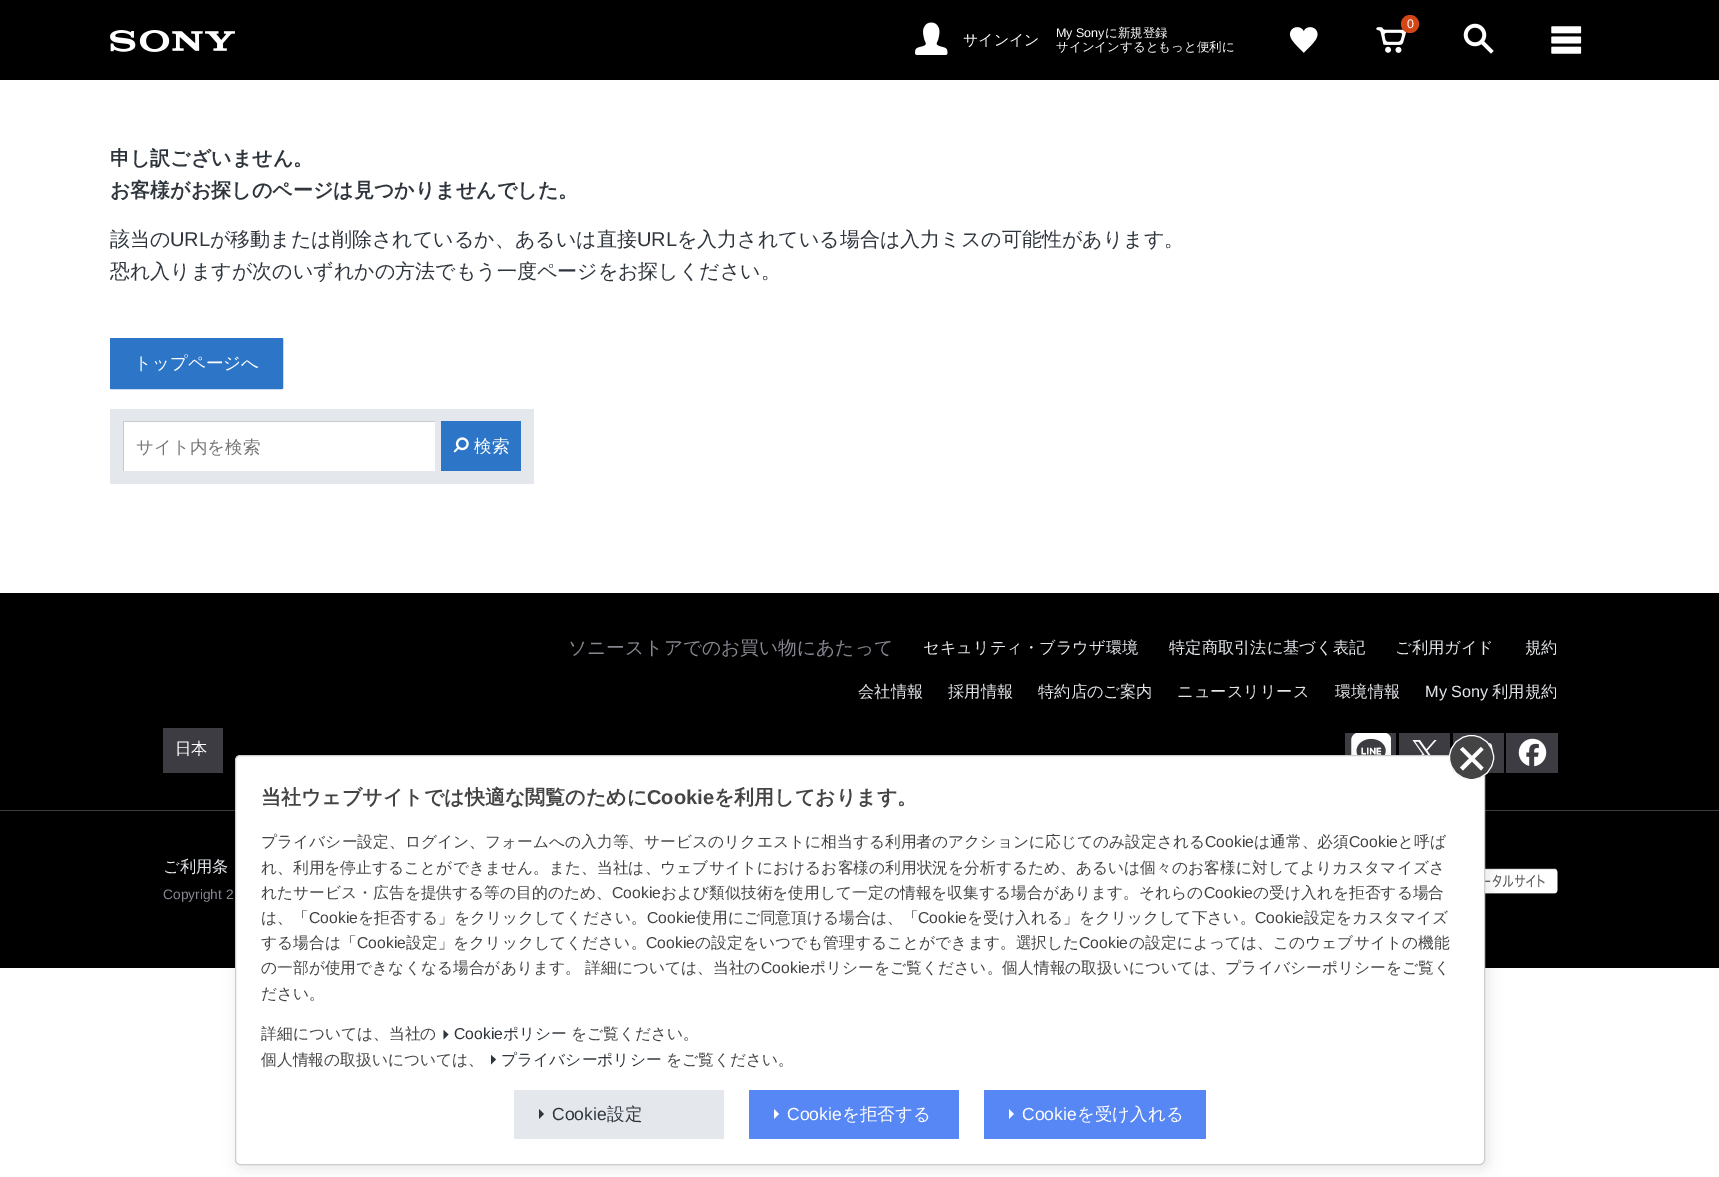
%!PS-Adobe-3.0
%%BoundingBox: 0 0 1719 1177
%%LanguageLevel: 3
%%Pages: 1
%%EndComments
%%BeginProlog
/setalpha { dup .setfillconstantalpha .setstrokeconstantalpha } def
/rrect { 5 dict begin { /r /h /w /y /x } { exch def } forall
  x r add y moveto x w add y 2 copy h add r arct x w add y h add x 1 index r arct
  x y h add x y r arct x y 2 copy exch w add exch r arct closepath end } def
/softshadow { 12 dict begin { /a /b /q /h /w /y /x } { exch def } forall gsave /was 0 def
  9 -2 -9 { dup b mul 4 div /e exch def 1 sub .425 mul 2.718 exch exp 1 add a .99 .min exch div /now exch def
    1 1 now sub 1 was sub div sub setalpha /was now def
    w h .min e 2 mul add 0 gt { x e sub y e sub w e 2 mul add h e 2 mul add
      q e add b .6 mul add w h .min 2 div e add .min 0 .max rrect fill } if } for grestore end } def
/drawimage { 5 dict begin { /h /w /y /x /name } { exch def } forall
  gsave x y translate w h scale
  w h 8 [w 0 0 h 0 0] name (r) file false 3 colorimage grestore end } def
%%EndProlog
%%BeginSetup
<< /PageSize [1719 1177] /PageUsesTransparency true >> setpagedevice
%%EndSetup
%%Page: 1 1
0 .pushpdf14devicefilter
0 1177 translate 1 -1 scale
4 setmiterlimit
1 setgray
0 0 1719 1177 rectfill
0 setgray
0 0 1719 80 rectfill
(images/1.raw) 110 30 125 22 drawimage
(images/2.raw) 915 22 33 33 drawimage
(images/3.raw) 1289 27 29 26 drawimage
(images/4.raw) 1376 27 31 26 drawimage
0.824 0.275 0.082 setrgbcolor
newpath 1410 24 9 0 360 arc closepath fill
(images/5.raw) 1463 23 31 31 drawimage
(images/6.raw) 1551 26 31 28 drawimage
0.176 0.459 0.78 setrgbcolor
110.5 338.5 172 50 0.5 rrect gsave fill grestore
stroke
0.894 0.906 0.925 setrgbcolor
110 409 424 75 rectfill
1 setgray
124 422 311 49 rectfill
0.784 0.796 0.808 setrgbcolor
123 421 312 1 rectfill
123 421 1 50 rectfill
0.176 0.459 0.78 setrgbcolor
441 421 80 50 rectfill
(images/7.raw) 453 437 16 16 drawimage
0 setgray
0 593 1719 375 rectfill
0.235 0.235 0.259 setrgbcolor
1345 733 51 22 rectfill
(images/8.raw) 1351 733 40 22 drawimage
1399 733 51 22 rectfill
(images/9.raw) 1412 740 25 15 drawimage
1453 733 51 40 rectfill
(images/10.raw) 1487 742 6 9 drawimage
1506 733 52 40 rectfill
(images/11.raw) 1518 738 29 29 drawimage
163 728 60 45 rectfill
0 810 1719 1 rectfill
(images/12.raw) 1485 868 73 26 drawimage
0 setgray
238 758 1250 410 5 7.5 0.1 softshadow
1 setgray
235.5 755.5 1249 409 4.5 rrect gsave fill grestore
0.8 setgray
stroke
0.267 setgray
newpath 1471.5 757.5 22 0 360 arc closepath gsave fill grestore
1 setgray
stroke
newpath 1460 767.5 moveto 1481 747 lineto 1483.5 749.5 lineto 1463 770.5 lineto closepath fill
newpath 1463 747 moveto 1483.5 767.5 lineto 1481 770.5 lineto 1460 749.5 lineto closepath fill
0.184 0.208 0.239 setrgbcolor
newpath 443.5 1030 moveto 448.5 1034.5 lineto 443.5 1039.5 lineto closepath fill
newpath 491 1055 moveto 496 1059.5 lineto 491 1064.5 lineto closepath fill
0.894 0.906 0.925 setrgbcolor
514 1090 210 49 1 rrect fill
0.184 0.208 0.239 setrgbcolor
newpath 539 1109 moveto 544 1114 lineto 539 1119 lineto closepath fill
0.341 0.529 0.957 setrgbcolor
749 1090 210 49 1 rrect fill
1 setgray
newpath 774 1109 moveto 779 1114 lineto 774 1119 lineto closepath fill
0.341 0.529 0.957 setrgbcolor
984 1090 222 49 1 rrect fill
1 setgray
newpath 1009 1109 moveto 1014 1114 lineto 1009 1119 lineto closepath fill
/WenQuanYiZenHei-Medium [15 0 0 -15 0 0] selectfont
963 45 moveto (サインイン) show
/LiberationSans-Regular [12.5 0 0 -12.5 0 0] selectfont
1056 37 moveto (My Sony) show
/WenQuanYiZenHei-Medium [12.5 0 0 -12.5 0 0] selectfont
1105 37 moveto (に新規登録) show
1056 51 moveto (サインインするともっと便利に) show
/LiberationSans-Regular [12.5 0 0 -12.5 0 0] selectfont
1407 28 moveto (0) show
/WenQuanYiZenHei-Bold [20 0 0 -20 0 0] selectfont
0.184 0.208 0.239 setrgbcolor
110 165 moveto (申し訳ございません。) show
110 197 moveto (お客様がお探しのページは見つかりませんでした。) show
/WenQuanYiZenHei-Medium [20 0 0 -20 0 0] selectfont
110 246 moveto (該当の) show
/LiberationSans-Regular [20 0 0 -20 0 0] selectfont
170 246 moveto (URL) show
/WenQuanYiZenHei-Medium [20 0 0 -20 0 0] selectfont
210 246 moveto (が移動または削除されているか、あるいは直接) show
/LiberationSans-Regular [20 0 0 -20 0 0] selectfont
637 246 moveto (URL) show
/WenQuanYiZenHei-Medium [20 0 0 -20 0 0] selectfont
677 246 moveto (を入力されている場合は入力ミスの可能性があります。) show
110 278 moveto (恐れ入りますが次のいずれかの方法でもう一度ページをお探しください。) show
/WenQuanYiZenHei-Medium [17.5 0 0 -17.5 0 0] selectfont
1 setgray
134 369 moveto (トップページへ) show
0.459 setgray
136 453 moveto (サイト内を検索) show
1 setgray
474 452 moveto (検索) show
/WenQuanYiZenHei-Medium [18.75 0 0 -18.75 0 0] selectfont
0.529 0.529 0.573 setrgbcolor
568 654 moveto (ソニーストアでのお買い物にあたって) show
/WenQuanYiZenHei-Medium [16.25 0 0 -16.25 0 0] selectfont
0.894 0.906 0.922 setrgbcolor
923 653 moveto (セキュリティ・ブラウザ環境) show
1169 653 moveto (特定商取引法に基づく表記) show
1395 653 moveto (ご利用ガイド) show
1525 653 moveto (規約) show
858 697 moveto (会社情報) show
948 697 moveto (採用情報) show
1038 697 moveto (特約店のご案内) show
1177 697 moveto (ニュースリリース) show
1335 697 moveto (環境情報) show
/LiberationSans-Regular [16.25 0 0 -16.25 0 0] selectfont
1425 697 moveto (My Sony) show
/WenQuanYiZenHei-Medium [16.25 0 0 -16.25 0 0] selectfont
1492 697 moveto (利用規約) show
1 setgray
175 754 moveto (日本) show
0.894 0.906 0.922 setrgbcolor
163 872 moveto (ご利用条) show
/LiberationSans-Regular [13.75 0 0 -13.75 0 0] selectfont
0.529 0.529 0.573 setrgbcolor
163 899 moveto (Copyright 2) show
/WenQuanYiZenHei-Bold [20 0 0 -20 0 0] selectfont
0.267 setgray
261 804 moveto (当社ウェブサイトでは快適な閲覧のために) show
/LiberationSans-Bold [20 0 0 -20 0 0] selectfont
647 804 moveto (Cookie) show
/WenQuanYiZenHei-Bold [20 0 0 -20 0 0] selectfont
714 804 moveto (を利用しております。) show
/WenQuanYiZenHei-Medium [15.75 0 0 -15.75 0 0] selectfont
261 847 moveto (プライバシー設定、ログイン、フォームへの入力等、サービスのリクエストに相当する利用者のアクションに応じてのみ設定される) show
/LiberationSans-Regular [15.75 0 0 -15.75 0 0] selectfont
1205 847 moveto (Cookie) show
/WenQuanYiZenHei-Medium [15.75 0 0 -15.75 0 0] selectfont
1254 847 moveto (は通常、必須) show
/LiberationSans-Regular [15.75 0 0 -15.75 0 0] selectfont
1349 847 moveto (Cookie) show
/WenQuanYiZenHei-Medium [15.75 0 0 -15.75 0 0] selectfont
1398 847 moveto (と呼ば) show
261 873 moveto (れ、利用を停止することができません。また、当社は、ウェブサイトにおけるお客様の利用状況を分析するため、あるいは個々のお客様に対してよりカスタマイズさ) show
261 898 moveto (れたサービス・広告を提供する等の目的のため、) show
/LiberationSans-Regular [15.75 0 0 -15.75 0 0] selectfont
612 898 moveto (Cookie) show
/WenQuanYiZenHei-Medium [15.75 0 0 -15.75 0 0] selectfont
661 898 moveto (および類似技術を使用して一定の情報を収集する場合があります。それらの) show
/LiberationSans-Regular [15.75 0 0 -15.75 0 0] selectfont
1204 898 moveto (Cookie) show
/WenQuanYiZenHei-Medium [15.75 0 0 -15.75 0 0] selectfont
1253 898 moveto (の受け入れを拒否する場合) show
261 923 moveto (は、「) show
/LiberationSans-Regular [15.75 0 0 -15.75 0 0] selectfont
309 923 moveto (Cookie) show
/WenQuanYiZenHei-Medium [15.75 0 0 -15.75 0 0] selectfont
358 923 moveto (を拒否する」をクリックしてください。) show
/LiberationSans-Regular [15.75 0 0 -15.75 0 0] selectfont
647 923 moveto (Cookie) show
/WenQuanYiZenHei-Medium [15.75 0 0 -15.75 0 0] selectfont
696 923 moveto (使用にご同意頂ける場合は、「) show
/LiberationSans-Regular [15.75 0 0 -15.75 0 0] selectfont
918 923 moveto (Cookie) show
/WenQuanYiZenHei-Medium [15.75 0 0 -15.75 0 0] selectfont
967 923 moveto (を受け入れる」をクリックして下さい。) show
/LiberationSans-Regular [15.75 0 0 -15.75 0 0] selectfont
1255 923 moveto (Cookie) show
/WenQuanYiZenHei-Medium [15.75 0 0 -15.75 0 0] selectfont
1304 923 moveto (設定をカスタマイズ) show
261 948 moveto (する場合は「) show
/LiberationSans-Regular [15.75 0 0 -15.75 0 0] selectfont
357 948 moveto (Cookie) show
/WenQuanYiZenHei-Medium [15.75 0 0 -15.75 0 0] selectfont
406 948 moveto (設定」をクリックしてください。) show
/LiberationSans-Regular [15.75 0 0 -15.75 0 0] selectfont
646 948 moveto (Cookie) show
/WenQuanYiZenHei-Medium [15.75 0 0 -15.75 0 0] selectfont
695 948 moveto (の設定をいつでも管理することができます。選択した) show
/LiberationSans-Regular [15.75 0 0 -15.75 0 0] selectfont
1079 948 moveto (Cookie) show
/WenQuanYiZenHei-Medium [15.75 0 0 -15.75 0 0] selectfont
1129 948 moveto (の設定によっては、このウェブサイトの機能) show
261 973 moveto (の一部が使用できなくなる場合があります。) show
585 973 moveto (詳細については、当社の) show
/LiberationSans-Regular [15.75 0 0 -15.75 0 0] selectfont
761 973 moveto (Cookie) show
/WenQuanYiZenHei-Medium [15.75 0 0 -15.75 0 0] selectfont
810 973 moveto (ポリシーをご覧ください。個人情報の取扱いについては、プライバシーポリシーをご覧く) show
261 999 moveto (ださい。) show
261 1039 moveto (詳細については、当社の) show
/LiberationSans-Regular [15.75 0 0 -15.75 0 0] selectfont
0.184 0.208 0.239 setrgbcolor
454 1039 moveto (Cookie) show
/WenQuanYiZenHei-Medium [15.75 0 0 -15.75 0 0] selectfont
503 1039 moveto (ポリシー) show
0.267 setgray
571 1039 moveto (をご覧ください。) show
261 1065 moveto (個人情報の取扱いについては、) show
0.184 0.208 0.239 setrgbcolor
501 1065 moveto (プライバシーポリシー) show
0.267 setgray
666 1065 moveto (をご覧ください。) show
/LiberationSans-Regular [17.5 0 0 -17.5 0 0] selectfont
0.184 0.208 0.239 setrgbcolor
552 1120 moveto (Cookie) show
/WenQuanYiZenHei-Medium [17.5 0 0 -17.5 0 0] selectfont
607 1120 moveto (設定) show
/LiberationSans-Regular [17.5 0 0 -17.5 0 0] selectfont
1 setgray
787 1120 moveto (Cookie) show
/WenQuanYiZenHei-Medium [17.5 0 0 -17.5 0 0] selectfont
842 1120 moveto (を拒否する) show
/LiberationSans-Regular [17.5 0 0 -17.5 0 0] selectfont
1022 1120 moveto (Cookie) show
/WenQuanYiZenHei-Medium [17.5 0 0 -17.5 0 0] selectfont
1077 1120 moveto (を受け入れる) show
.poppdf14devicefilter showpage
%%EOF
